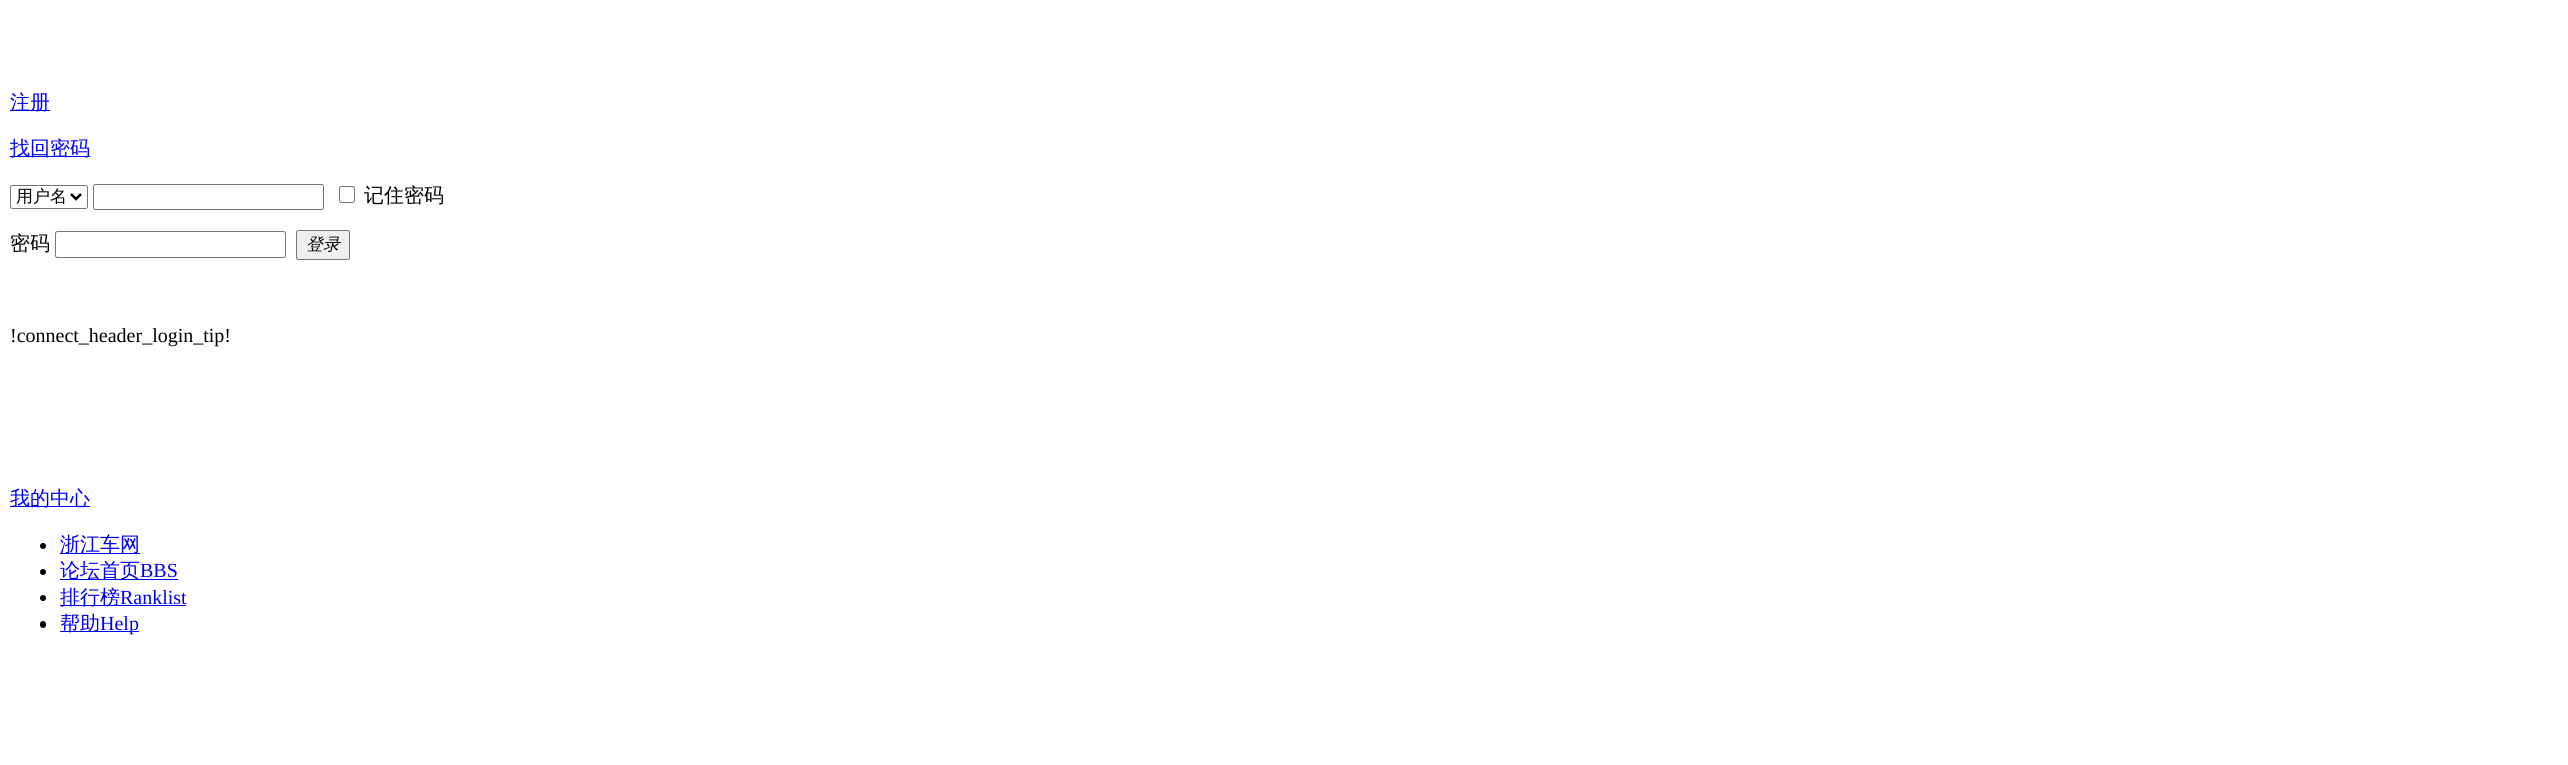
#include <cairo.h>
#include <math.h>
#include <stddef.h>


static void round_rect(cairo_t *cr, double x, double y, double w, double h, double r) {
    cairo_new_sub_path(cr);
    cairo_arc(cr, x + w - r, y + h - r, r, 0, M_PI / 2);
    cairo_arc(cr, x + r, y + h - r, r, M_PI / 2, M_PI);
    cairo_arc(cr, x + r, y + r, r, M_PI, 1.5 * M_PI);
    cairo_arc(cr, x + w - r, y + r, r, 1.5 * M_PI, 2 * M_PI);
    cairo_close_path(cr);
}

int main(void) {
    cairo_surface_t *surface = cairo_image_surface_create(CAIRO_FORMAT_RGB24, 2568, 765);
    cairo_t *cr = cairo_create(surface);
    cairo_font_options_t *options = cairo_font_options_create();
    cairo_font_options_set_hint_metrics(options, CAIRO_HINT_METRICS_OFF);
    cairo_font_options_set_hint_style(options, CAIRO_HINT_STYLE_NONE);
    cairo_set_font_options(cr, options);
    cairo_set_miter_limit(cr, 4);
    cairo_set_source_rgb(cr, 1, 1, 1);
    cairo_paint(cr);
    cairo_set_source_rgb(cr, 0, 0, 0.933);
    cairo_rectangle(cr, 10, 110, 40, 1);
    cairo_fill(cr);
    cairo_select_font_face(cr, "WenQuanYi Zen Hei Medium", CAIRO_FONT_SLANT_NORMAL, CAIRO_FONT_WEIGHT_NORMAL);
    cairo_set_font_size(cr, 20);
    cairo_move_to(cr, 10, 109);
    cairo_show_text(cr, "注册");
    cairo_rectangle(cr, 10, 156, 80, 1);
    cairo_fill(cr);
    cairo_move_to(cr, 10, 155);
    cairo_show_text(cr, "找回密码");
    round_rect(cr, 10.5, 185.5, 77, 23, 2);
    cairo_set_source_rgb(cr, 0.463, 0.463, 0.463);
    cairo_set_line_width(cr, 1);
    cairo_stroke(cr);
    cairo_new_path(cr);
    cairo_move_to(cr, 71, 194);
    cairo_line_to(cr, 76, 199);
    cairo_line_to(cr, 81, 194);
    cairo_set_source_rgb(cr, 0, 0, 0);
    cairo_set_line_width(cr, 2.5);
    cairo_stroke(cr);
    cairo_set_font_size(cr, 17);
    cairo_move_to(cr, 16, 202);
    cairo_show_text(cr, "用户名");
    round_rect(cr, 93.5, 184.5, 230, 25, 2);
    cairo_set_source_rgb(cr, 0.463, 0.463, 0.463);
    cairo_set_line_width(cr, 1);
    cairo_stroke(cr);
    round_rect(cr, 339.5, 186.5, 15, 16, 2);
    cairo_stroke(cr);
    cairo_set_font_size(cr, 20);
    cairo_set_source_rgb(cr, 0, 0, 0);
    cairo_move_to(cr, 364, 202);
    cairo_show_text(cr, "记住密码");
    cairo_move_to(cr, 10, 250);
    cairo_show_text(cr, "密码");
    round_rect(cr, 55.5, 231.5, 230, 26, 2);
    cairo_set_source_rgb(cr, 0.463, 0.463, 0.463);
    cairo_stroke(cr);
    cairo_set_source_rgb(cr, 0.937, 0.937, 0.937);
    round_rect(cr, 296.5, 230.5, 53, 29, 2);
    cairo_fill_preserve(cr);
    cairo_set_source_rgb(cr, 0.463, 0.463, 0.463);
    cairo_stroke(cr);
    cairo_select_font_face(cr, "WenQuanYi Zen Hei Medium", CAIRO_FONT_SLANT_ITALIC, CAIRO_FONT_WEIGHT_NORMAL);
    cairo_set_font_size(cr, 17);
    cairo_set_source_rgb(cr, 0, 0, 0);
    cairo_move_to(cr, 306, 250);
    cairo_show_text(cr, "登录");
    cairo_select_font_face(cr, "Liberation Serif", CAIRO_FONT_SLANT_NORMAL, CAIRO_FONT_WEIGHT_NORMAL);
    cairo_set_font_size(cr, 20);
    cairo_move_to(cr, 10, 342);
    cairo_show_text(cr, "!connect_header_login_tip!");
    cairo_set_source_rgb(cr, 0, 0, 0.933);
    cairo_rectangle(cr, 10, 506, 80, 1);
    cairo_fill(cr);
    cairo_select_font_face(cr, "WenQuanYi Zen Hei Medium", CAIRO_FONT_SLANT_NORMAL, CAIRO_FONT_WEIGHT_NORMAL);
    cairo_move_to(cr, 10, 505);
    cairo_show_text(cr, "我的中心");
    cairo_set_source_rgb(cr, 0, 0, 0);
    cairo_new_path(cr);
    cairo_arc(cr, 43, 546, 3, 0, 2 * M_PI);
    cairo_fill(cr);
    cairo_set_source_rgb(cr, 0, 0, 0.933);
    cairo_rectangle(cr, 60, 553, 80, 1);
    cairo_fill(cr);
    cairo_move_to(cr, 60, 551);
    cairo_show_text(cr, "浙江车网");
    cairo_set_source_rgb(cr, 0, 0, 0);
    cairo_new_path(cr);
    cairo_arc(cr, 43, 572, 3, 0, 2 * M_PI);
    cairo_fill(cr);
    cairo_set_source_rgb(cr, 0, 0, 0.933);
    cairo_rectangle(cr, 60, 579, 118, 1);
    cairo_fill(cr);
    cairo_move_to(cr, 60, 577);
    cairo_show_text(cr, "论坛首页");
    cairo_select_font_face(cr, "Liberation Serif", CAIRO_FONT_SLANT_NORMAL, CAIRO_FONT_WEIGHT_NORMAL);
    cairo_move_to(cr, 140, 577);
    cairo_show_text(cr, "BBS");
    cairo_set_source_rgb(cr, 0, 0, 0);
    cairo_new_path(cr);
    cairo_arc(cr, 43, 598, 3, 0, 2 * M_PI);
    cairo_fill(cr);
    cairo_set_source_rgb(cr, 0, 0, 0.933);
    cairo_rectangle(cr, 60, 605, 126, 1);
    cairo_fill(cr);
    cairo_select_font_face(cr, "WenQuanYi Zen Hei Medium", CAIRO_FONT_SLANT_NORMAL, CAIRO_FONT_WEIGHT_NORMAL);
    cairo_move_to(cr, 60, 604);
    cairo_show_text(cr, "排行榜");
    cairo_select_font_face(cr, "Liberation Serif", CAIRO_FONT_SLANT_NORMAL, CAIRO_FONT_WEIGHT_NORMAL);
    cairo_move_to(cr, 120, 604);
    cairo_show_text(cr, "Ranklist");
    cairo_set_source_rgb(cr, 0, 0, 0);
    round_rect(cr, 40, 621, 6, 7, 3);
    cairo_fill(cr);
    cairo_set_source_rgb(cr, 0, 0, 0.933);
    cairo_rectangle(cr, 60, 631, 79, 1);
    cairo_fill(cr);
    cairo_select_font_face(cr, "WenQuanYi Zen Hei Medium", CAIRO_FONT_SLANT_NORMAL, CAIRO_FONT_WEIGHT_NORMAL);
    cairo_move_to(cr, 60, 630);
    cairo_show_text(cr, "帮助");
    cairo_select_font_face(cr, "Liberation Serif", CAIRO_FONT_SLANT_NORMAL, CAIRO_FONT_WEIGHT_NORMAL);
    cairo_move_to(cr, 100, 630);
    cairo_show_text(cr, "Help");
    cairo_surface_write_to_png(surface, "page.png");
    cairo_font_options_destroy(options);
    cairo_destroy(cr);
    cairo_surface_destroy(surface);
    return 0;
}
